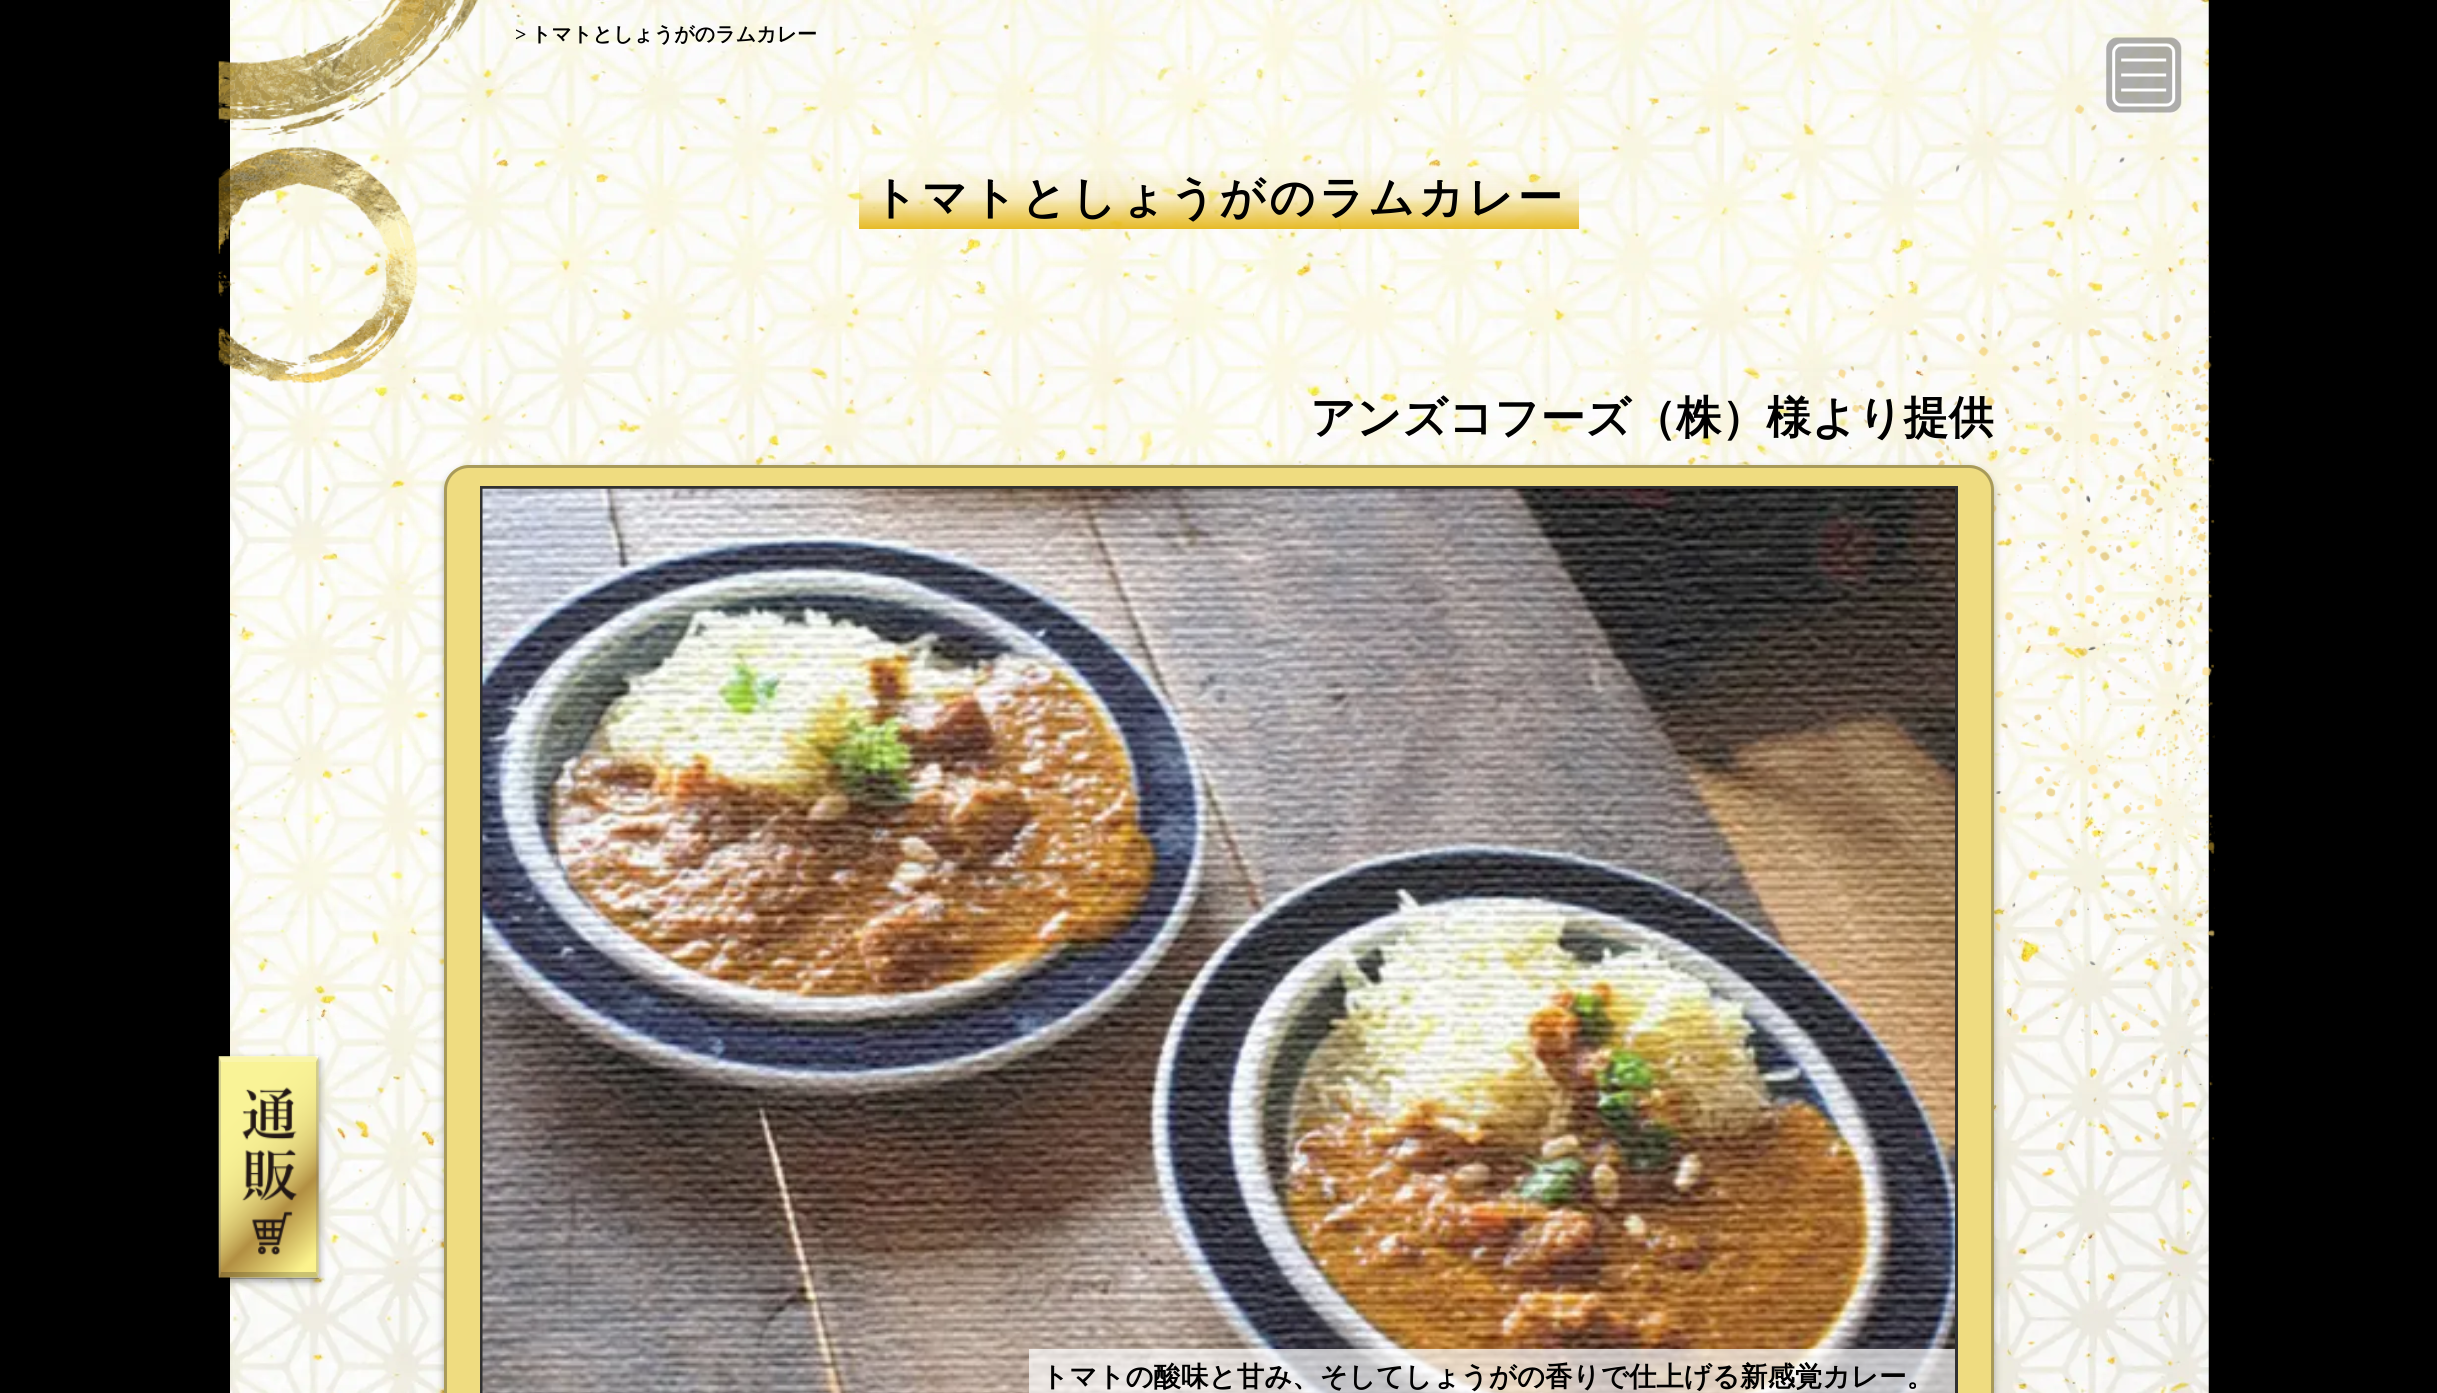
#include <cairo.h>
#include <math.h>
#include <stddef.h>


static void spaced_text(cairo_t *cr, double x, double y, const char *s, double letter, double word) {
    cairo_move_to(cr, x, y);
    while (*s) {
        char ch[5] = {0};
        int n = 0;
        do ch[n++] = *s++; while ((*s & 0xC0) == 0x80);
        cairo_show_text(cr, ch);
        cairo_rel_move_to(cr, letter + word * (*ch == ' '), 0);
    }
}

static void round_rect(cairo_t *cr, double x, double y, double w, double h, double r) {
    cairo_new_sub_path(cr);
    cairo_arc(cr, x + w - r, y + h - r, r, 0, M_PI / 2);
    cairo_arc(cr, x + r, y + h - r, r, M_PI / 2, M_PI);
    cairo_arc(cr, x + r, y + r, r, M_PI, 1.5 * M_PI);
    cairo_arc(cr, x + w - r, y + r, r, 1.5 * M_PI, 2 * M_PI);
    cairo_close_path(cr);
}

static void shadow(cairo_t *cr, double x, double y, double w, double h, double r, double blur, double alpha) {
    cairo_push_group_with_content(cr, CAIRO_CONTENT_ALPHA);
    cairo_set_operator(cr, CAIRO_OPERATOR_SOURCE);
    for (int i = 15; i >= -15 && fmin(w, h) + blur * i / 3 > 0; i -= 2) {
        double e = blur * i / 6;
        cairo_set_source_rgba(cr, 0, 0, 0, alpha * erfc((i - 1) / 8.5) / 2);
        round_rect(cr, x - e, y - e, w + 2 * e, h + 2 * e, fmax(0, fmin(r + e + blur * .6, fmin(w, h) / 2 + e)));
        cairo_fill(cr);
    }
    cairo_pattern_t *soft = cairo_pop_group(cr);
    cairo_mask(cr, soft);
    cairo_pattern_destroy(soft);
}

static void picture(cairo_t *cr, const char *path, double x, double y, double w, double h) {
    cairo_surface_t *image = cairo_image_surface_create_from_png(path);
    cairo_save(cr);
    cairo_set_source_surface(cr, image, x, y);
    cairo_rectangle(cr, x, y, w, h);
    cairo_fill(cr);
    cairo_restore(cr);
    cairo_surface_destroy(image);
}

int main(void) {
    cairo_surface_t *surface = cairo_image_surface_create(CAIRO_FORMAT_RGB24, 2437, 1393);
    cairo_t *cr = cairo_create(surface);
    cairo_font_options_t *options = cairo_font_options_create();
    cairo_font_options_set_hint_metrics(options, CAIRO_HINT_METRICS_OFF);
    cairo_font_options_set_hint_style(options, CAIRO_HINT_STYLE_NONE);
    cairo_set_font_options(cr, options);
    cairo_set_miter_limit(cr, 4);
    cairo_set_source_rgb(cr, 0, 0, 0);
    cairo_paint(cr);
    picture(cr, "img1.png", 230, 0, 1985, 1393);
    cairo_select_font_face(cr, "Liberation Serif", CAIRO_FONT_SLANT_NORMAL, CAIRO_FONT_WEIGHT_BOLD);
    cairo_set_font_size(cr, 20);
    cairo_set_source_rgb(cr, 0, 0, 0);
    cairo_move_to(cr, 515, 41);
    cairo_show_text(cr, ">");
    cairo_select_font_face(cr, "WenQuanYi Zen Hei", CAIRO_FONT_SLANT_NORMAL, CAIRO_FONT_WEIGHT_BOLD);
    cairo_move_to(cr, 531, 41);
    cairo_show_text(cr, "トマトとしょうがのラムカレー");
    picture(cr, "img2.png", 2106, 37, 76, 76);
    picture(cr, "img3.png", 218, 0, 260, 384);
    cairo_set_font_size(cr, 45);
    spaced_text(cr, 872, 213, "トマトとしょうがのラムカレー", 3.6, 0);
    cairo_move_to(cr, 1310, 433);
    cairo_show_text(cr, "アンズコフーズ（株）様より提供");
    cairo_save(cr);
    cairo_set_fill_rule(cr, CAIRO_FILL_RULE_EVEN_ODD);
    cairo_new_path(cr);
    cairo_move_to(cr, 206, 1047);
    cairo_line_to(cr, 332, 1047);
    cairo_line_to(cr, 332, 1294);
    cairo_line_to(cr, 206, 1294);
    cairo_close_path(cr);
    cairo_move_to(cr, 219, 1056);
    cairo_line_to(cr, 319, 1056);
    cairo_line_to(cr, 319, 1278);
    cairo_line_to(cr, 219, 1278);
    cairo_close_path(cr);
    cairo_clip(cr);
    cairo_set_source_rgb(cr, 0, 0, 0);
    shadow(cr, 219, 1060, 100, 221, 0, 4, 0.4);
    cairo_restore(cr);
    picture(cr, "img4.png", 218, 1056, 101, 222);
    cairo_set_source_rgba(cr, 1, 1, 1, 0.2);
    cairo_new_path(cr);
    cairo_move_to(cr, 219, 1056);
    cairo_line_to(cr, 319, 1056);
    cairo_line_to(cr, 316, 1062);
    cairo_line_to(cr, 221, 1062);
    cairo_close_path(cr);
    cairo_fill(cr);
    cairo_set_source_rgba(cr, 0.478, 0.478, 0.478, 0.3);
    cairo_new_path(cr);
    cairo_move_to(cr, 319, 1056);
    cairo_line_to(cr, 319, 1279);
    cairo_line_to(cr, 316, 1272);
    cairo_line_to(cr, 316, 1062);
    cairo_close_path(cr);
    cairo_fill(cr);
    cairo_set_source_rgba(cr, 0, 0, 0, 0.2);
    cairo_new_path(cr);
    cairo_move_to(cr, 319, 1279);
    cairo_line_to(cr, 219, 1279);
    cairo_line_to(cr, 221, 1272);
    cairo_line_to(cr, 316, 1272);
    cairo_close_path(cr);
    cairo_fill(cr);
    cairo_set_source_rgba(cr, 0.478, 0.478, 0.478, 0.3);
    cairo_new_path(cr);
    cairo_move_to(cr, 219, 1279);
    cairo_line_to(cr, 219, 1056);
    cairo_line_to(cr, 221, 1062);
    cairo_line_to(cr, 221, 1272);
    cairo_close_path(cr);
    cairo_fill(cr);
    cairo_set_source_rgb(cr, 0, 0, 0);
    shadow(cr, 444, 469, 1550, 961, 25, 4, 0.3);
    cairo_set_source_rgb(cr, 0.937, 0.871, 0.525);
    round_rect(cr, 444, 465, 1550, 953, 25);
    cairo_fill(cr);
    cairo_set_source_rgba(cr, 0.929, 0.847, 0.459, 0.19);
    round_rect(cr, 444, 465, 1550, 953, 25);
    cairo_fill(cr);
    round_rect(cr, 444, 465, 1550, 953, 25);
    cairo_fill(cr);
    round_rect(cr, 445.5, 466.5, 1547, 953, 23.5);
    cairo_set_source_rgba(cr, 0, 0, 0, 0.3);
    cairo_set_line_width(cr, 3);
    cairo_stroke(cr);
    cairo_rectangle(cr, 481.5, 487.5, 1475, 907);
    cairo_set_source_rgb(cr, 0.192, 0.192, 0.192);
    cairo_stroke(cr);
    picture(cr, "img5.png", 482, 488, 1473, 905);
    cairo_set_source_rgba(cr, 1, 1, 1, 0.7);
    cairo_rectangle(cr, 1029, 1349, 926, 44);
    cairo_fill(cr);
    cairo_set_font_size(cr, 27.5);
    cairo_set_source_rgb(cr, 0, 0, 0);
    cairo_move_to(cr, 1041, 1386);
    cairo_show_text(cr, "トマトの酸味と甘み、そしてしょうがの香りで仕上げる新感覚カレー。");
    cairo_surface_write_to_png(surface, "page.png");
    cairo_font_options_destroy(options);
    cairo_destroy(cr);
    cairo_surface_destroy(surface);
    return 0;
}
